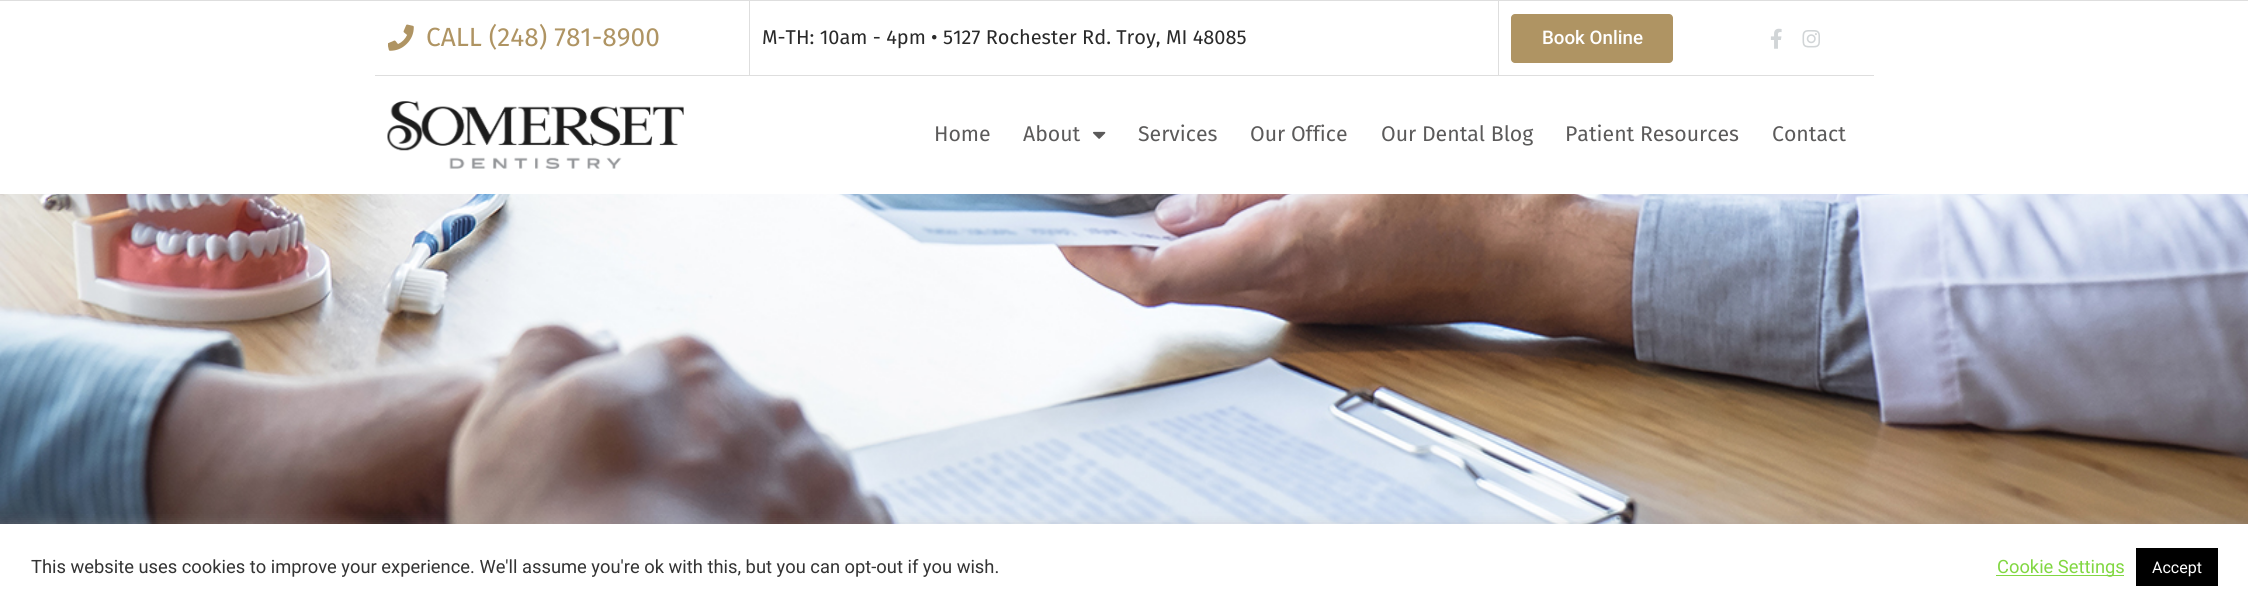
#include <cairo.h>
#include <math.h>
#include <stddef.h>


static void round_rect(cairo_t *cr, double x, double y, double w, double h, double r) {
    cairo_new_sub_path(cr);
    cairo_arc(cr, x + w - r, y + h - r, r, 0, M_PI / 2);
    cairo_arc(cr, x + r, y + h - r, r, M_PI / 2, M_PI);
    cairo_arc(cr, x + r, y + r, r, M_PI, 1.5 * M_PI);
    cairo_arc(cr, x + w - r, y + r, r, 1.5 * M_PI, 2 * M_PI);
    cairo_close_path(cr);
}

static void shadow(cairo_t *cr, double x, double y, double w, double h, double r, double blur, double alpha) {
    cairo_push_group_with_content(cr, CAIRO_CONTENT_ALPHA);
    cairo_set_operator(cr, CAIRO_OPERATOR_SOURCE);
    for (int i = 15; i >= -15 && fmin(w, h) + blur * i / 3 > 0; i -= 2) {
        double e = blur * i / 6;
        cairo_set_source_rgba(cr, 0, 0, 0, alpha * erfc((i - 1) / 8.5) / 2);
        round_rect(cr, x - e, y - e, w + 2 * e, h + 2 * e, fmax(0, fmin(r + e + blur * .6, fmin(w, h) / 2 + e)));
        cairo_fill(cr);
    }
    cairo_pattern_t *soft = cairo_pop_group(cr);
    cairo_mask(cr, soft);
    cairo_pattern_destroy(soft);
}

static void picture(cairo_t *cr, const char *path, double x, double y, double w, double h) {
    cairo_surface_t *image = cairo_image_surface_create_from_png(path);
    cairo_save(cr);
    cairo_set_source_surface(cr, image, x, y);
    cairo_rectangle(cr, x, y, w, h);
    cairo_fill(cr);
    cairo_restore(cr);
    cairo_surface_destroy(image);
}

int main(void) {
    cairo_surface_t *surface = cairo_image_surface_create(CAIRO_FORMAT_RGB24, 2248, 609);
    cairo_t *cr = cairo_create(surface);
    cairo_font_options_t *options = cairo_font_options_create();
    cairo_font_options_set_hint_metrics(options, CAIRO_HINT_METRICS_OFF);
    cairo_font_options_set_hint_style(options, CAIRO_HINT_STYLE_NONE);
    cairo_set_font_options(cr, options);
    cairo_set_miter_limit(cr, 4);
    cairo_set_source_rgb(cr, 1, 1, 1);
    cairo_paint(cr);
    cairo_set_source_rgb(cr, 0.871, 0.871, 0.871);
    cairo_rectangle(cr, 0, 0, 2248, 1);
    cairo_fill(cr);
    cairo_rectangle(cr, 749, 1, 1, 75);
    cairo_fill(cr);
    cairo_rectangle(cr, 375, 75, 375, 1);
    cairo_fill(cr);
    picture(cr, "img1.png", 388, 24, 26, 27);
    cairo_select_font_face(cr, "Fira Sans", CAIRO_FONT_SLANT_NORMAL, CAIRO_FONT_WEIGHT_NORMAL);
    cairo_set_font_size(cr, 26.25);
    cairo_set_source_rgb(cr, 0.686, 0.58, 0.388);
    cairo_move_to(cr, 426, 46);
    cairo_show_text(cr, "CALL (248) 781-8900");
    cairo_set_source_rgb(cr, 0.871, 0.871, 0.871);
    cairo_rectangle(cr, 1498, 1, 1, 75);
    cairo_fill(cr);
    cairo_rectangle(cr, 750, 75, 1124, 1);
    cairo_fill(cr);
    cairo_set_font_size(cr, 20);
    cairo_set_source_rgb(cr, 0.161, 0.161, 0.161);
    cairo_move_to(cr, 762, 44);
    cairo_show_text(cr, "M-TH: 10am - 4pm • 5127 Rochester Rd. Troy, MI 48085");
    cairo_set_source_rgb(cr, 0.686, 0.58, 0.388);
    round_rect(cr, 1511, 14, 162, 49, 4);
    cairo_fill(cr);
    cairo_select_font_face(cr, "Roboto Medium", CAIRO_FONT_SLANT_NORMAL, CAIRO_FONT_WEIGHT_NORMAL);
    cairo_set_font_size(cr, 18.75);
    cairo_set_source_rgb(cr, 1, 1, 1);
    cairo_move_to(cr, 1542, 44);
    cairo_show_text(cr, "Book Online");
    picture(cr, "img2.png", 1770, 28, 12, 21);
    picture(cr, "img3.png", 1802, 30, 18, 18);
    picture(cr, "img4.png", 387, 101, 297, 68);
    cairo_select_font_face(cr, "Fira Sans", CAIRO_FONT_SLANT_NORMAL, CAIRO_FONT_WEIGHT_NORMAL);
    cairo_set_font_size(cr, 21.25);
    cairo_set_source_rgb(cr, 0.357, 0.353, 0.353);
    cairo_move_to(cr, 934, 141);
    cairo_show_text(cr, "Home");
    cairo_move_to(cr, 1023, 141);
    cairo_show_text(cr, "About");
    picture(cr, "img5.png", 1093, 131, 13, 8);
    cairo_move_to(cr, 1138, 141);
    cairo_show_text(cr, "Services");
    cairo_move_to(cr, 1250, 141);
    cairo_show_text(cr, "Our Office");
    cairo_move_to(cr, 1381, 141);
    cairo_show_text(cr, "Our Dental Blog");
    cairo_move_to(cr, 1565, 141);
    cairo_show_text(cr, "Patient Resources");
    cairo_move_to(cr, 1772, 141);
    cairo_show_text(cr, "Contact");
    picture(cr, "img6.png", 0, 194, 2248, 330);
    cairo_set_source_rgb(cr, 0.675, 0.671, 0.671);
    shadow(cr, 0, 523, 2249, 86, 0, 6, 0.3);
    cairo_set_source_rgb(cr, 1, 1, 1);
    cairo_rectangle(cr, 0, 524, 2248, 85);
    cairo_fill(cr);
    cairo_select_font_face(cr, "Roboto", CAIRO_FONT_SLANT_NORMAL, CAIRO_FONT_WEIGHT_NORMAL);
    cairo_set_font_size(cr, 18.33);
    cairo_set_source_rgb(cr, 0.2, 0.2, 0.2);
    cairo_move_to(cr, 31, 573);
    cairo_show_text(cr, "This website uses cookies to improve your experience. We'll assume you're ok with this, but you can opt-out if you wish.");
    cairo_set_source_rgb(cr, 0.506, 0.843, 0.259);
    cairo_rectangle(cr, 1996, 575, 128, 1);
    cairo_fill(cr);
    cairo_move_to(cr, 1997, 573);
    cairo_show_text(cr, "Cookie Settings");
    cairo_set_source_rgb(cr, 0, 0, 0);
    cairo_rectangle(cr, 2136, 548, 82, 38);
    cairo_fill(cr);
    cairo_set_font_size(cr, 16);
    cairo_set_source_rgb(cr, 1, 1, 1);
    cairo_move_to(cr, 2152, 573);
    cairo_show_text(cr, "Accept");
    cairo_surface_write_to_png(surface, "page.png");
    cairo_font_options_destroy(options);
    cairo_destroy(cr);
    cairo_surface_destroy(surface);
    return 0;
}
